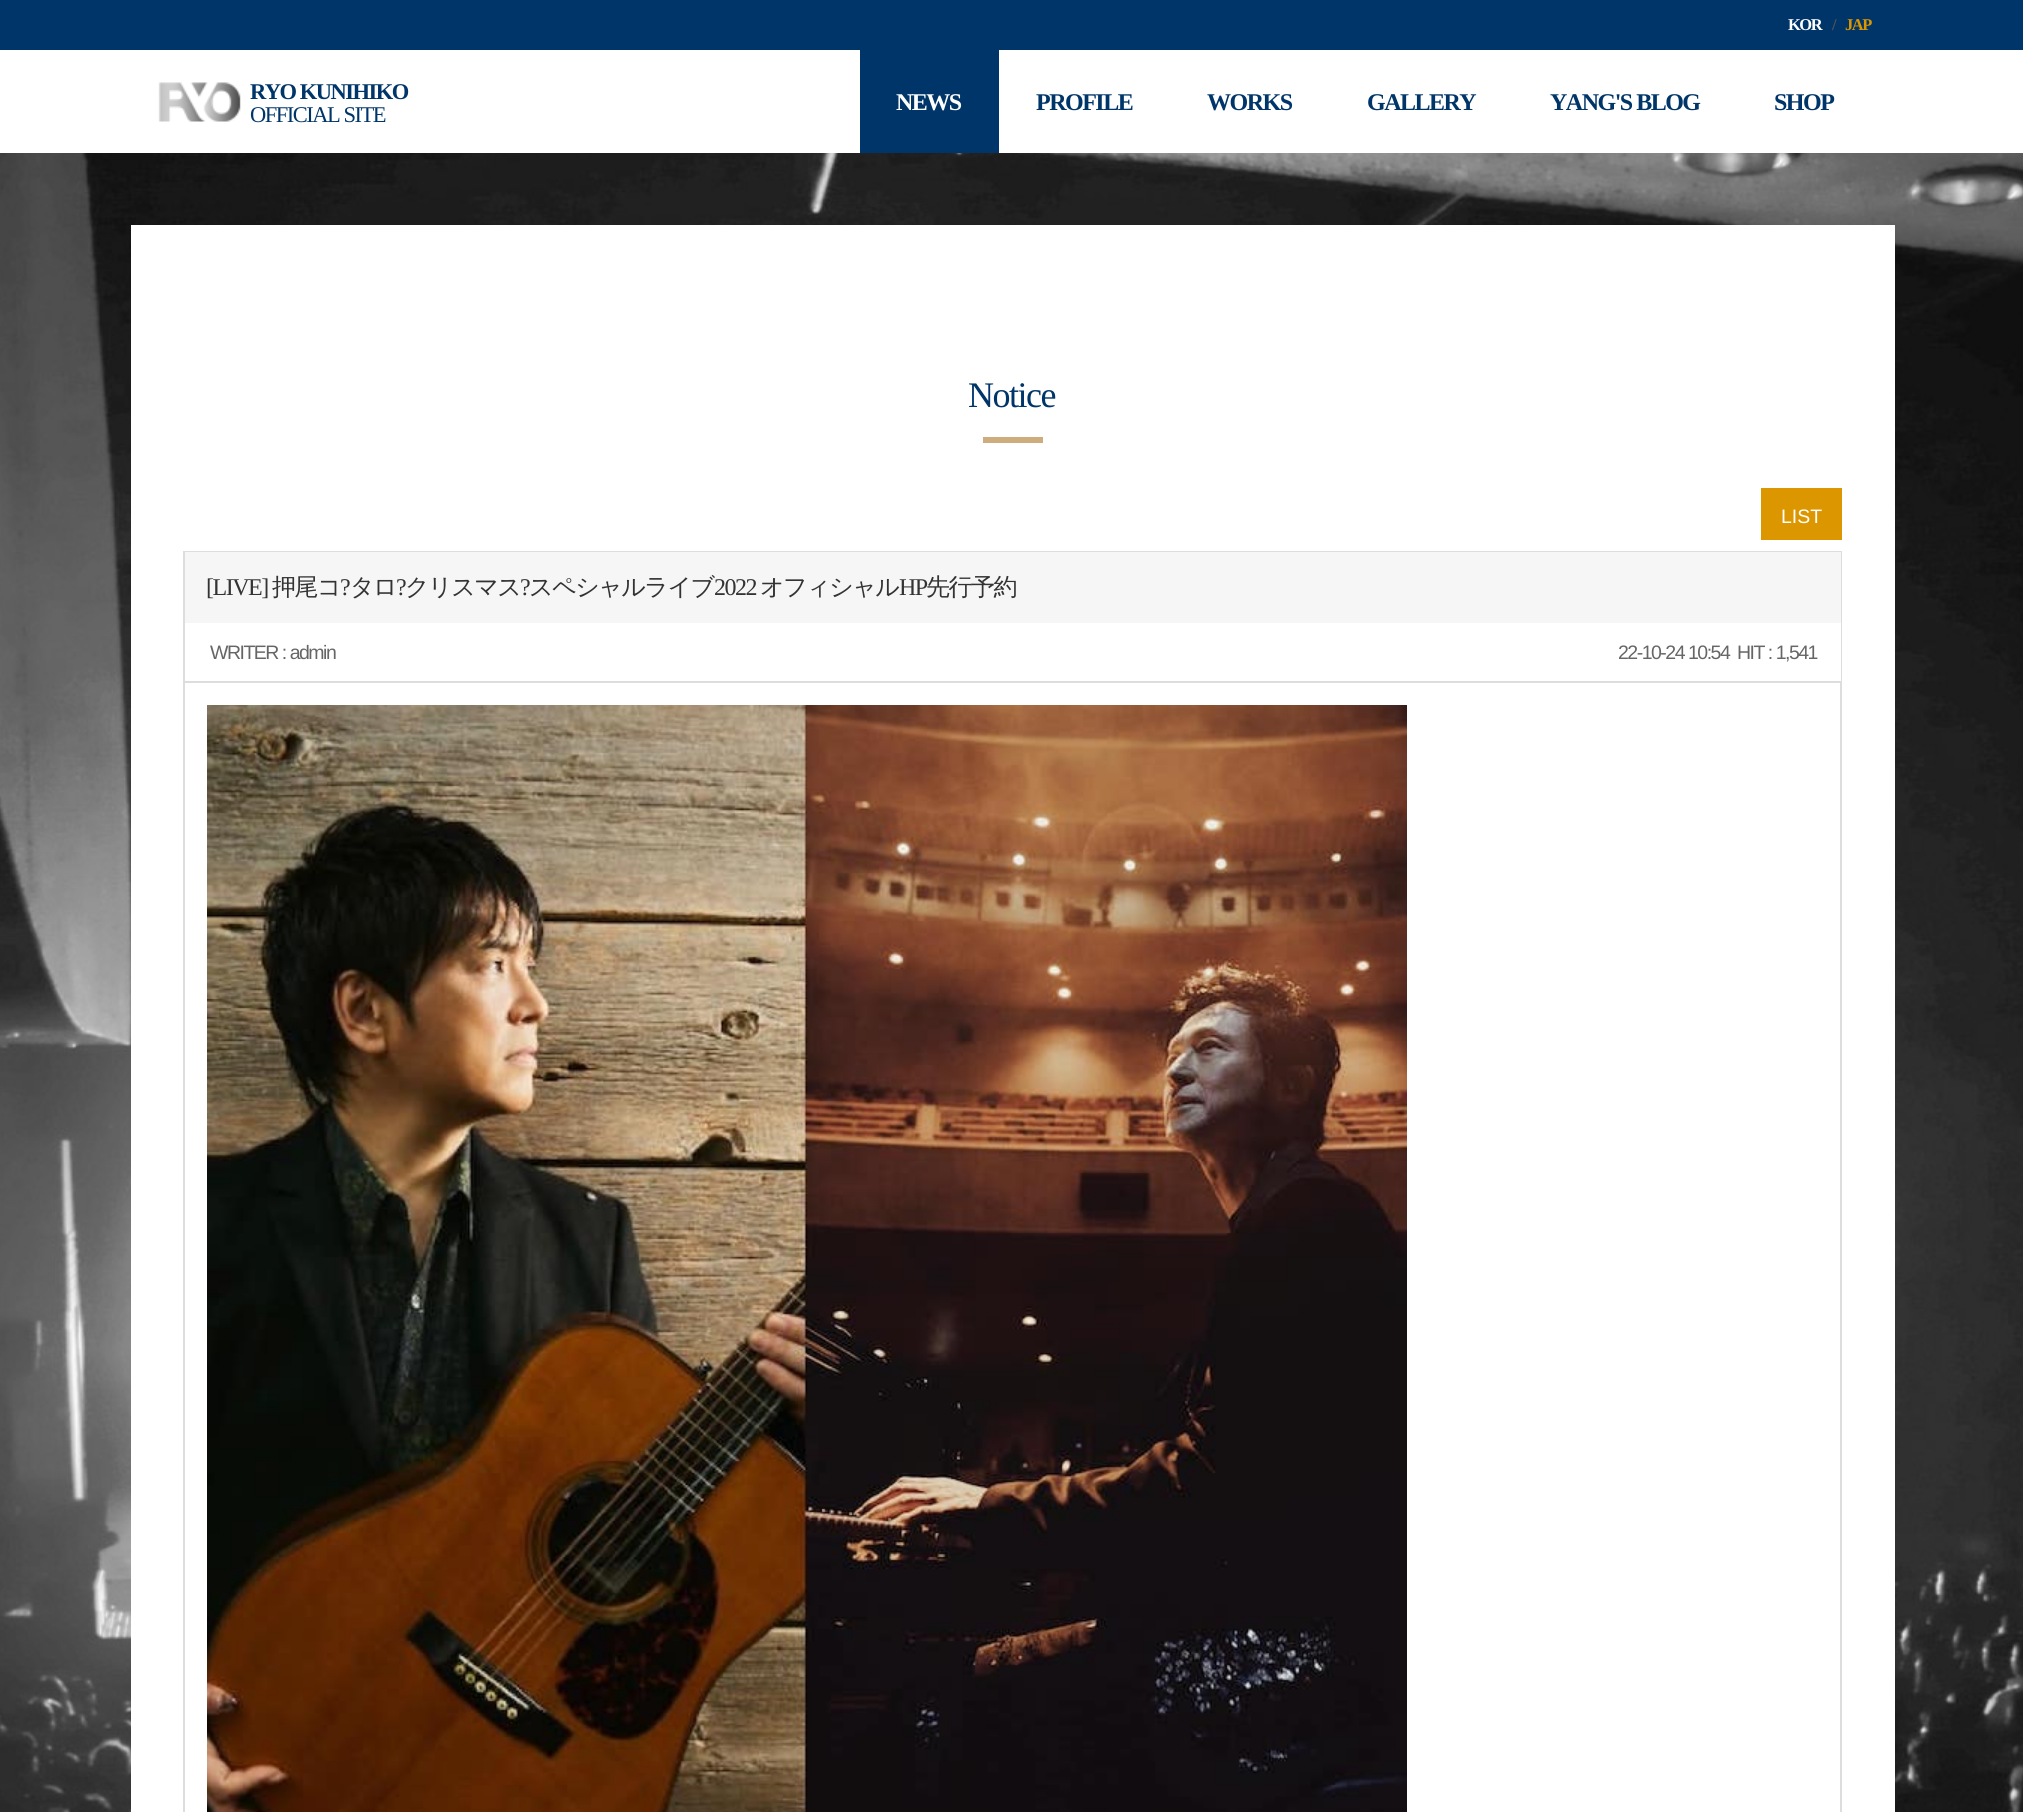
#include <cairo.h>
#include <math.h>
#include <stddef.h>


static void spaced_text(cairo_t *cr, double x, double y, const char *s, double letter, double word) {
    cairo_move_to(cr, x, y);
    while (*s) {
        char ch[5] = {0};
        int n = 0;
        do ch[n++] = *s++; while ((*s & 0xC0) == 0x80);
        cairo_show_text(cr, ch);
        cairo_rel_move_to(cr, letter + word * (*ch == ' '), 0);
    }
}

static void picture(cairo_t *cr, const char *path, double x, double y, double w, double h) {
    cairo_surface_t *image = cairo_image_surface_create_from_png(path);
    cairo_save(cr);
    cairo_set_source_surface(cr, image, x, y);
    cairo_rectangle(cr, x, y, w, h);
    cairo_fill(cr);
    cairo_restore(cr);
    cairo_surface_destroy(image);
}

int main(void) {
    cairo_surface_t *surface = cairo_image_surface_create(CAIRO_FORMAT_RGB24, 2023, 1812);
    cairo_t *cr = cairo_create(surface);
    cairo_font_options_t *options = cairo_font_options_create();
    cairo_font_options_set_hint_metrics(options, CAIRO_HINT_METRICS_OFF);
    cairo_font_options_set_hint_style(options, CAIRO_HINT_STYLE_NONE);
    cairo_set_font_options(cr, options);
    cairo_set_miter_limit(cr, 4);
    cairo_set_source_rgb(cr, 1, 1, 1);
    cairo_paint(cr);
    picture(cr, "img1.png", 0, 153, 2023, 1659);
    cairo_set_source_rgb(cr, 0, 0.208, 0.412);
    cairo_rectangle(cr, 0, 0, 2023, 50);
    cairo_fill(cr);
    cairo_select_font_face(cr, "Liberation Serif", CAIRO_FONT_SLANT_NORMAL, CAIRO_FONT_WEIGHT_BOLD);
    cairo_set_font_size(cr, 16.5);
    cairo_set_source_rgb(cr, 1, 1, 1);
    spaced_text(cr, 1788, 30, "KOR", -1.5, 0);
    cairo_set_source_rgb(cr, 0.322, 0.329, 0.337);
    spaced_text(cr, 1832, 30, "/", -1.5, 0);
    cairo_set_source_rgb(cr, 0.859, 0.588, 0);
    spaced_text(cr, 1845, 30, "JAP", -1.5, 0);
    picture(cr, "img2.png", 158, 82, 83, 40);
    cairo_set_font_size(cr, 22.5);
    cairo_set_source_rgb(cr, 0, 0.208, 0.412);
    spaced_text(cr, 250, 99, "RYO KUNIHIKO", -1.5, 0);
    cairo_select_font_face(cr, "Liberation Serif", CAIRO_FONT_SLANT_NORMAL, CAIRO_FONT_WEIGHT_NORMAL);
    spaced_text(cr, 250, 122, "OFFICIAL SITE", -1.5, 0);
    cairo_rectangle(cr, 860, 50, 139, 103);
    cairo_fill(cr);
    cairo_select_font_face(cr, "Liberation Serif", CAIRO_FONT_SLANT_NORMAL, CAIRO_FONT_WEIGHT_BOLD);
    cairo_set_font_size(cr, 24);
    cairo_set_source_rgb(cr, 1, 1, 1);
    spaced_text(cr, 896, 110, "NEWS", -1.5, 0);
    cairo_set_source_rgb(cr, 0, 0.208, 0.412);
    spaced_text(cr, 1036, 110, "PROFILE", -1.5, 0);
    spaced_text(cr, 1207, 110, "WORKS", -1.5, 0);
    spaced_text(cr, 1367, 110, "GALLERY", -1.5, 0);
    spaced_text(cr, 1550, 110, "YANG'S BLOG", -1.5, 0);
    spaced_text(cr, 1774, 110, "SHOP", -1.5, 0);
    cairo_set_source_rgb(cr, 1, 1, 1);
    cairo_rectangle(cr, 131, 225, 1764, 1587);
    cairo_fill(cr);
    cairo_select_font_face(cr, "Liberation Serif", CAIRO_FONT_SLANT_NORMAL, CAIRO_FONT_WEIGHT_NORMAL);
    cairo_set_font_size(cr, 36);
    cairo_set_source_rgb(cr, 0, 0.208, 0.412);
    spaced_text(cr, 968, 407, "Notice", -1.5, 0);
    cairo_set_source_rgb(cr, 0.804, 0.678, 0.494);
    cairo_rectangle(cr, 983, 437, 60, 6);
    cairo_fill(cr);
    cairo_set_source_rgb(cr, 0.859, 0.588, 0);
    cairo_rectangle(cr, 1761, 488, 81, 52);
    cairo_fill(cr);
    cairo_select_font_face(cr, "Liberation Sans", CAIRO_FONT_SLANT_NORMAL, CAIRO_FONT_WEIGHT_NORMAL);
    cairo_set_font_size(cr, 19.5);
    cairo_set_source_rgb(cr, 1, 1, 1);
    cairo_move_to(cr, 1781, 523);
    cairo_show_text(cr, "LIST");
    cairo_rectangle(cr, 184, 552, 1657, 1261);
    cairo_set_source_rgb(cr, 0.867, 0.867, 0.867);
    cairo_stroke(cr);
    cairo_set_source_rgb(cr, 0.961, 0.961, 0.961);
    cairo_rectangle(cr, 185, 552, 1656, 71);
    cairo_fill(cr);
    cairo_select_font_face(cr, "Liberation Serif", CAIRO_FONT_SLANT_NORMAL, CAIRO_FONT_WEIGHT_NORMAL);
    cairo_set_font_size(cr, 24);
    cairo_set_source_rgb(cr, 0.2, 0.2, 0.2);
    spaced_text(cr, 206, 595, "[LIVE]", -1.5, 0);
    cairo_select_font_face(cr, "WenQuanYi Zen Hei Medium", CAIRO_FONT_SLANT_NORMAL, CAIRO_FONT_WEIGHT_NORMAL);
    spaced_text(cr, 272, 595, "押尾コ", -1.5, 0);
    cairo_select_font_face(cr, "Liberation Serif", CAIRO_FONT_SLANT_NORMAL, CAIRO_FONT_WEIGHT_NORMAL);
    spaced_text(cr, 340, 595, "?", -1.5, 0);
    cairo_select_font_face(cr, "WenQuanYi Zen Hei Medium", CAIRO_FONT_SLANT_NORMAL, CAIRO_FONT_WEIGHT_NORMAL);
    spaced_text(cr, 350, 595, "タロ", -1.5, 0);
    cairo_select_font_face(cr, "Liberation Serif", CAIRO_FONT_SLANT_NORMAL, CAIRO_FONT_WEIGHT_NORMAL);
    spaced_text(cr, 396, 595, "?", -1.5, 0);
    cairo_select_font_face(cr, "WenQuanYi Zen Hei Medium", CAIRO_FONT_SLANT_NORMAL, CAIRO_FONT_WEIGHT_NORMAL);
    spaced_text(cr, 405, 595, "クリスマス", -1.5, 0);
    cairo_select_font_face(cr, "Liberation Serif", CAIRO_FONT_SLANT_NORMAL, CAIRO_FONT_WEIGHT_NORMAL);
    spaced_text(cr, 520, 595, "?", -1.5, 0);
    cairo_select_font_face(cr, "WenQuanYi Zen Hei Medium", CAIRO_FONT_SLANT_NORMAL, CAIRO_FONT_WEIGHT_NORMAL);
    spaced_text(cr, 529, 595, "スペシャルライブ", -1.5, 0);
    cairo_select_font_face(cr, "Liberation Serif", CAIRO_FONT_SLANT_NORMAL, CAIRO_FONT_WEIGHT_NORMAL);
    spaced_text(cr, 714, 595, "2022", -1.5, 0);
    cairo_select_font_face(cr, "WenQuanYi Zen Hei Medium", CAIRO_FONT_SLANT_NORMAL, CAIRO_FONT_WEIGHT_NORMAL);
    spaced_text(cr, 760, 595, "オフィシャル", -1.5, 0);
    cairo_select_font_face(cr, "Liberation Serif", CAIRO_FONT_SLANT_NORMAL, CAIRO_FONT_WEIGHT_NORMAL);
    spaced_text(cr, 899, 595, "HP", -1.5, 0);
    cairo_select_font_face(cr, "WenQuanYi Zen Hei Medium", CAIRO_FONT_SLANT_NORMAL, CAIRO_FONT_WEIGHT_NORMAL);
    spaced_text(cr, 926, 595, "先行予約", -1.5, 0);
    cairo_set_source_rgb(cr, 1, 1, 1);
    cairo_rectangle(cr, 1840, 623, 1, 58);
    cairo_fill(cr);
    cairo_set_source_rgb(cr, 0.867, 0.867, 0.867);
    cairo_rectangle(cr, 185, 681, 1656, 2);
    cairo_fill(cr);
    cairo_select_font_face(cr, "Liberation Sans", CAIRO_FONT_SLANT_NORMAL, CAIRO_FONT_WEIGHT_NORMAL);
    cairo_set_font_size(cr, 19.5);
    cairo_set_source_rgb(cr, 0.4, 0.4, 0.4);
    spaced_text(cr, 210, 659, "WRITER : admin", -1.5, 0);
    spaced_text(cr, 1618, 659, "22-10-24 10:54", -1.5, 0);
    spaced_text(cr, 1737, 659, "HIT : 1,541", -1.5, 0);
    picture(cr, "img3.png", 207, 705, 1200, 1107);
    cairo_surface_write_to_png(surface, "page.png");
    cairo_font_options_destroy(options);
    cairo_destroy(cr);
    cairo_surface_destroy(surface);
    return 0;
}
